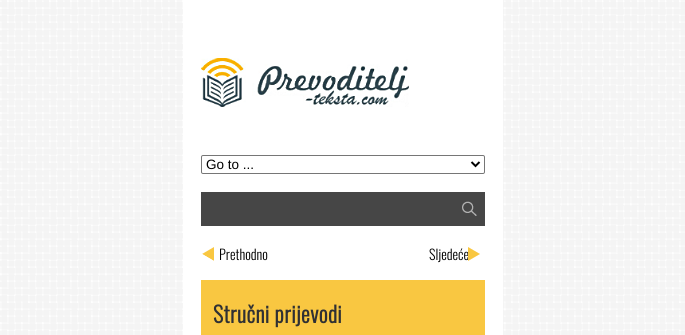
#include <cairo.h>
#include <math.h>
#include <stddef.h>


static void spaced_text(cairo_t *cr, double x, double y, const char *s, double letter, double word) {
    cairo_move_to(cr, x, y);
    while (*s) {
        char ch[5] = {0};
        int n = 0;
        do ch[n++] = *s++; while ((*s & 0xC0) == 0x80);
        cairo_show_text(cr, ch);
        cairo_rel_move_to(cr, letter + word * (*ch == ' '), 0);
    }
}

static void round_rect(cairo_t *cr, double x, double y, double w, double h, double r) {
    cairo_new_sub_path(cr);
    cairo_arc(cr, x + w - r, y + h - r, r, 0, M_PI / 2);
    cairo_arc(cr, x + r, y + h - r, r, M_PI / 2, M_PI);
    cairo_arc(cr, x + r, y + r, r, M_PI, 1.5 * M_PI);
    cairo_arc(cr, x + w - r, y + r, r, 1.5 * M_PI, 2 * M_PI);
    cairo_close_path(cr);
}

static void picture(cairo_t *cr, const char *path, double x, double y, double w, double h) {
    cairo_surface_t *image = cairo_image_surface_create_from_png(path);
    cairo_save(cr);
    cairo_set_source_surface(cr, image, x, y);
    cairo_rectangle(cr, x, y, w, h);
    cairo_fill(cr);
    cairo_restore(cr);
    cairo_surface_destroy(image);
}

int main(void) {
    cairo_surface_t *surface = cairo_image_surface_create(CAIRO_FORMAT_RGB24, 685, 335);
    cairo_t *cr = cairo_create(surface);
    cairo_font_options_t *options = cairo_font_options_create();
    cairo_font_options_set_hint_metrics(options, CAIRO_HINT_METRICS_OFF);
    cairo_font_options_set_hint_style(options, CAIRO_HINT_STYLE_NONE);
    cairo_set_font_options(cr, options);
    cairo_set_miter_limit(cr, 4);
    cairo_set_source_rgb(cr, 1, 1, 1);
    cairo_paint(cr);
    picture(cr, "img1.png", 0, 0, 685, 335);
    cairo_set_source_rgb(cr, 1, 1, 1);
    cairo_rectangle(cr, 183, 0, 320, 335);
    cairo_fill(cr);
    picture(cr, "img2.png", 201, 58, 208, 49);
    round_rect(cr, 201.5, 155.5, 283, 18, 1.5);
    cairo_set_source_rgb(cr, 0.463, 0.463, 0.463);
    cairo_set_line_width(cr, 1);
    cairo_stroke(cr);
    cairo_new_path(cr);
    cairo_move_to(cr, 471.5, 162);
    cairo_line_to(cr, 475.5, 166);
    cairo_line_to(cr, 479.5, 162);
    cairo_set_source_rgb(cr, 0, 0, 0);
    cairo_set_line_width(cr, 2);
    cairo_stroke(cr);
    cairo_select_font_face(cr, "Liberation Sans", CAIRO_FONT_SLANT_NORMAL, CAIRO_FONT_WEIGHT_NORMAL);
    cairo_set_font_size(cr, 13.5);
    cairo_move_to(cr, 206, 169);
    cairo_show_text(cr, "Go to ...");
    cairo_set_source_rgb(cr, 0.275, 0.275, 0.275);
    cairo_rectangle(cr, 201, 192, 284, 34);
    cairo_fill(cr);
    picture(cr, "img3.png", 462, 201, 15, 15);
    cairo_set_source_rgb(cr, 0.973, 0.78, 0.255);
    cairo_new_path(cr);
    cairo_move_to(cr, 214, 247);
    cairo_line_to(cr, 214, 261);
    cairo_line_to(cr, 202, 254);
    cairo_close_path(cr);
    cairo_fill(cr);
    cairo_save(cr);
    cairo_rectangle(cr, 201, 244, 284, 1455);
    cairo_clip(cr);
    cairo_set_source_rgb(cr, 1, 1, 1);
    cairo_new_path(cr);
    cairo_move_to(cr, 214, 261);
    cairo_line_to(cr, 180, 261);
    cairo_line_to(cr, 187, 254);
    cairo_line_to(cr, 202, 254);
    cairo_close_path(cr);
    cairo_fill(cr);
    cairo_restore(cr);
    cairo_select_font_face(cr, "Oswald Light", CAIRO_FONT_SLANT_NORMAL, CAIRO_FONT_WEIGHT_NORMAL);
    cairo_set_font_size(cr, 14);
    cairo_set_source_rgb(cr, 0, 0, 0);
    cairo_move_to(cr, 219, 260);
    cairo_show_text(cr, "Prethodno");
    cairo_move_to(cr, 429, 260);
    cairo_show_text(cr, "Sljedeće");
    cairo_set_source_rgb(cr, 0.973, 0.78, 0.255);
    cairo_new_path(cr);
    cairo_move_to(cr, 468, 261);
    cairo_line_to(cr, 468, 247);
    cairo_line_to(cr, 480, 254);
    cairo_close_path(cr);
    cairo_fill(cr);
    cairo_rectangle(cr, 201, 280, 284, 55);
    cairo_fill(cr);
    cairo_select_font_face(cr, "Oswald", CAIRO_FONT_SLANT_NORMAL, CAIRO_FONT_WEIGHT_BOLD);
    cairo_set_font_size(cr, 22);
    cairo_set_source_rgb(cr, 0.184, 0.188, 0.2);
    spaced_text(cr, 213, 323, "Stručni prijevodi", 0.4, 0);
    cairo_surface_write_to_png(surface, "page.png");
    cairo_font_options_destroy(options);
    cairo_destroy(cr);
    cairo_surface_destroy(surface);
    return 0;
}
